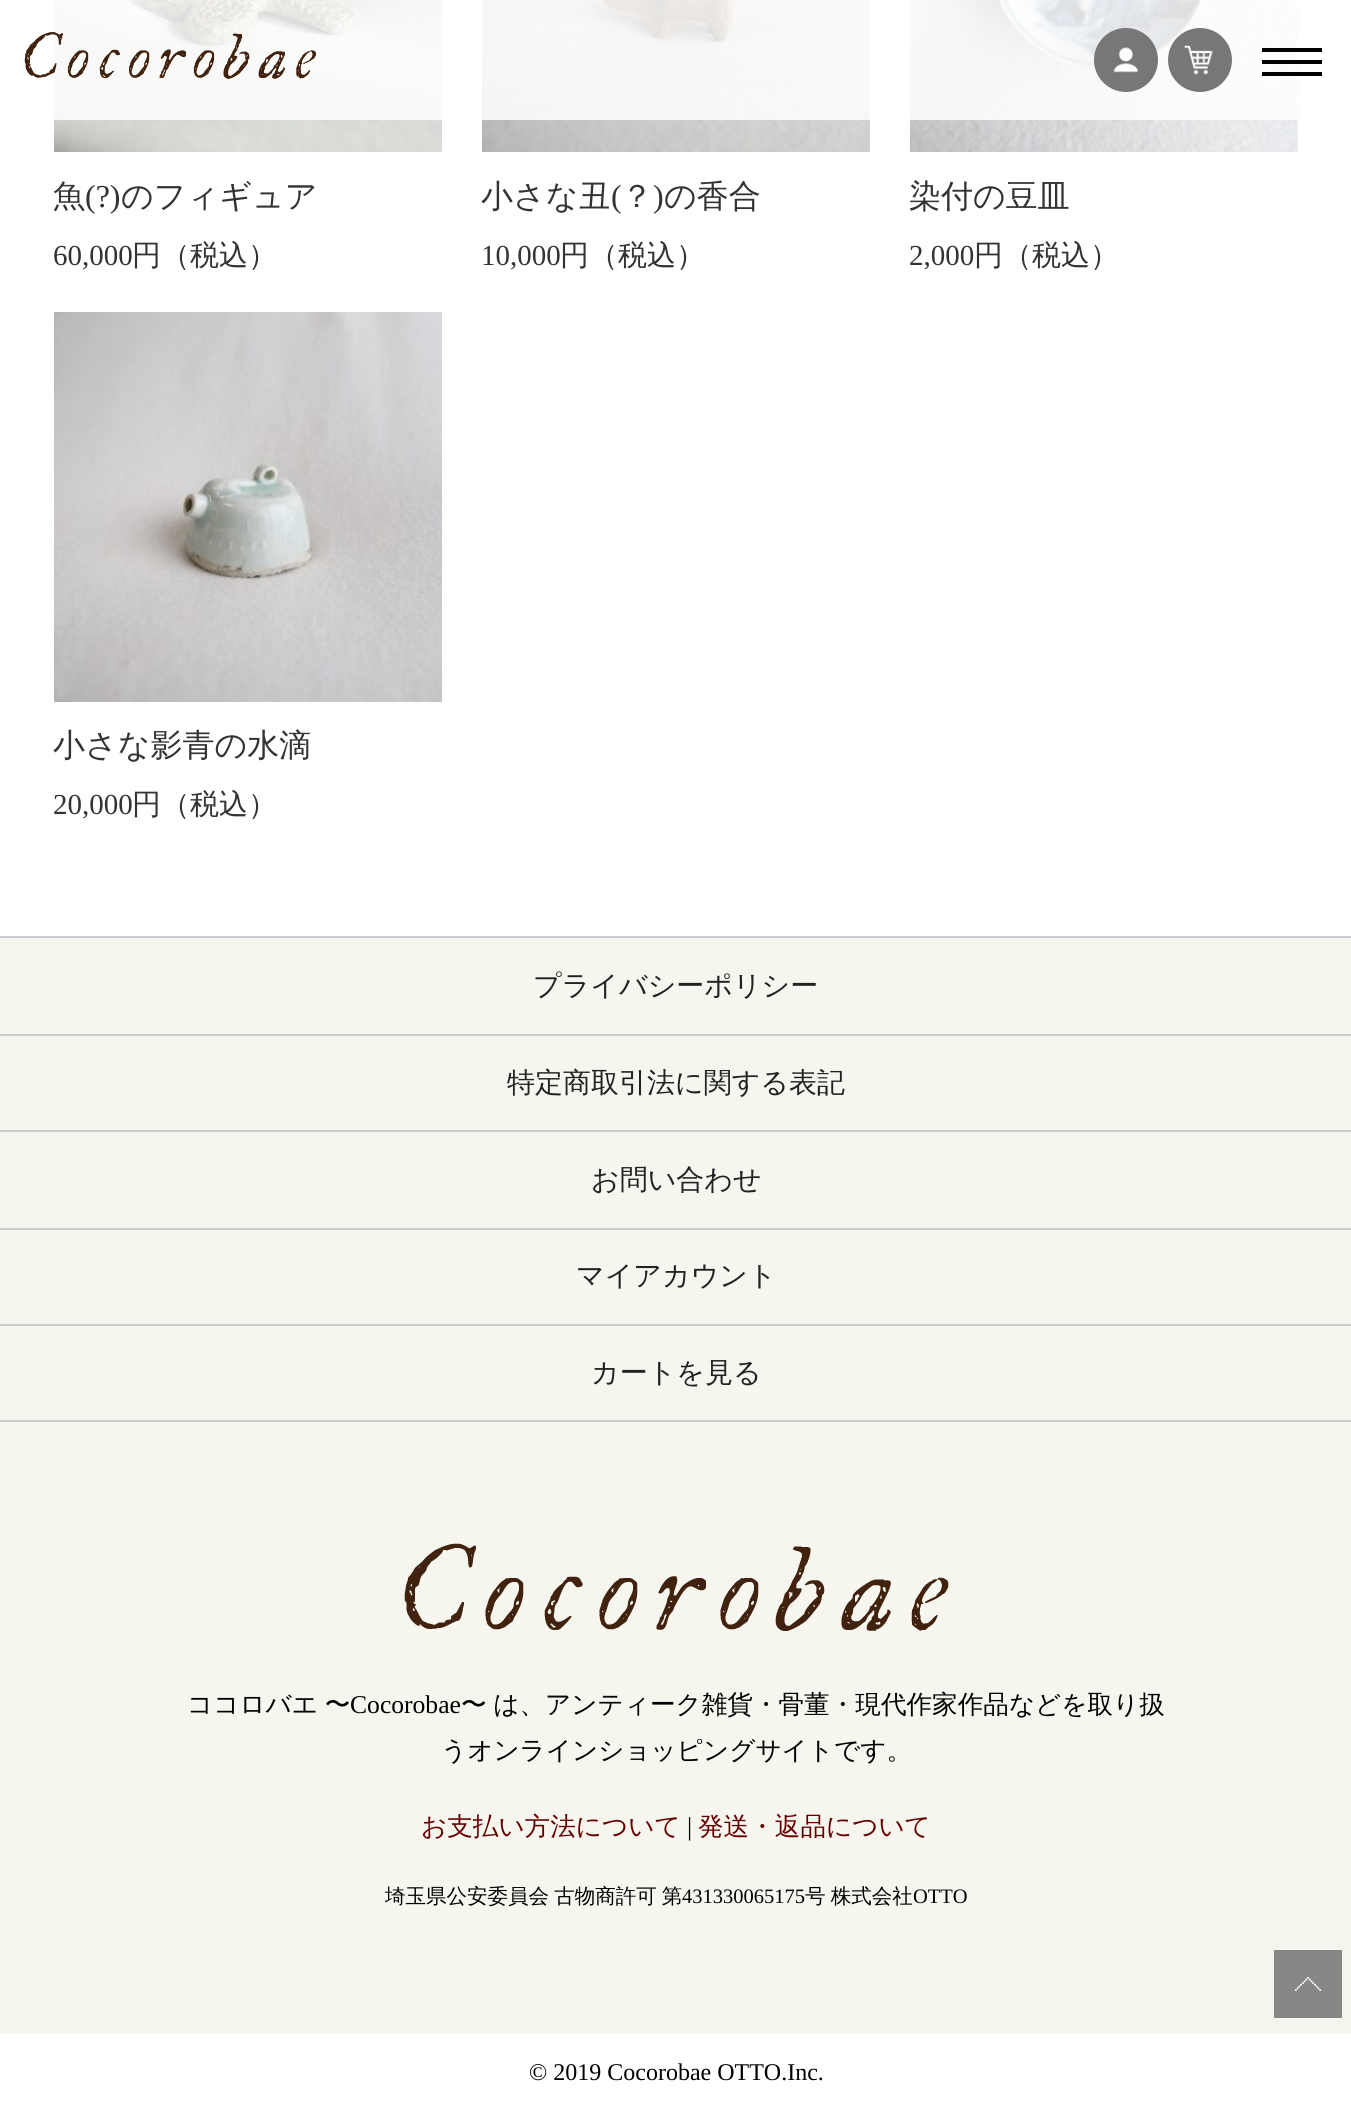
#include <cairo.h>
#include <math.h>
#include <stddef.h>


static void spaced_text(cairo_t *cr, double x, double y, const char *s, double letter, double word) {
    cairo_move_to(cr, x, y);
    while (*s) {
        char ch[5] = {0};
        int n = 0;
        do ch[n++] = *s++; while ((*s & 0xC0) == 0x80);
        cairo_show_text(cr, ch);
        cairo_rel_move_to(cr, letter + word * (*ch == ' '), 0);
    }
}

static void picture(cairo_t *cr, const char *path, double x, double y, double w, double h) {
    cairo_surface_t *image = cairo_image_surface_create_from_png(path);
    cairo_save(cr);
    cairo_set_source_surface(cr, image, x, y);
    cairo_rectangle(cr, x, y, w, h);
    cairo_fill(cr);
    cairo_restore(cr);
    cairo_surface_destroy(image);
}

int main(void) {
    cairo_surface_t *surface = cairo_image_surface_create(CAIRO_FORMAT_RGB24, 1351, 2109);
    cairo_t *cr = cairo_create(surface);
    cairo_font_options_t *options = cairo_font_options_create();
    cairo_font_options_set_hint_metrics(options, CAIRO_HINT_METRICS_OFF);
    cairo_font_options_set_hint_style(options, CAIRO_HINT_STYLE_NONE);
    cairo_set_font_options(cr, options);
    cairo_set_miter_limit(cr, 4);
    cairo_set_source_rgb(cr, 1, 1, 1);
    cairo_paint(cr);
    picture(cr, "img4.png", 54, 0, 388, 152);
    picture(cr, "img5.png", 482, 0, 388, 152);
    picture(cr, "img6.png", 910, 0, 388, 152);
    cairo_set_source_rgba(cr, 1, 1, 1, 0.85);
    cairo_rectangle(cr, 54, 0, 1244, 120);
    cairo_fill(cr);
    picture(cr, "img1.png", 24, 32, 292, 47);
    cairo_set_source_rgb(cr, 0.467, 0.467, 0.467);
    cairo_arc(cr, 1126, 60, 32, 0, 2 * M_PI);
    cairo_fill(cr);
    picture(cr, "img2.png", 1113, 47, 26, 26);
    cairo_arc(cr, 1200, 60, 32, 0, 2 * M_PI);
    cairo_fill(cr);
    picture(cr, "img3.png", 1184, 45, 29, 30);
    cairo_set_source_rgb(cr, 0, 0, 0);
    cairo_rectangle(cr, 1262, 48, 60, 4);
    cairo_fill(cr);
    cairo_rectangle(cr, 1262, 60, 60, 4);
    cairo_fill(cr);
    cairo_rectangle(cr, 1262, 72, 60, 4);
    cairo_fill(cr);
    cairo_select_font_face(cr, "WenQuanYi Zen Hei Medium", CAIRO_FONT_SLANT_NORMAL, CAIRO_FONT_WEIGHT_NORMAL);
    cairo_set_font_size(cr, 32);
    cairo_set_source_rgb(cr, 0.2, 0.2, 0.2);
    cairo_move_to(cr, 53, 207);
    cairo_show_text(cr, "魚");
    cairo_select_font_face(cr, "Liberation Serif", CAIRO_FONT_SLANT_NORMAL, CAIRO_FONT_WEIGHT_NORMAL);
    cairo_move_to(cr, 85, 207);
    cairo_show_text(cr, "(?)");
    cairo_select_font_face(cr, "WenQuanYi Zen Hei Medium", CAIRO_FONT_SLANT_NORMAL, CAIRO_FONT_WEIGHT_NORMAL);
    cairo_move_to(cr, 121, 207);
    cairo_show_text(cr, "のフィギュア");
    cairo_select_font_face(cr, "Liberation Serif", CAIRO_FONT_SLANT_NORMAL, CAIRO_FONT_WEIGHT_NORMAL);
    cairo_set_font_size(cr, 29);
    cairo_move_to(cr, 53, 265);
    cairo_show_text(cr, "60,000");
    cairo_select_font_face(cr, "WenQuanYi Zen Hei Medium", CAIRO_FONT_SLANT_NORMAL, CAIRO_FONT_WEIGHT_NORMAL);
    cairo_move_to(cr, 132, 265);
    cairo_show_text(cr, "円（税込）");
    cairo_set_font_size(cr, 32);
    cairo_move_to(cr, 481, 207);
    cairo_show_text(cr, "小さな丑");
    cairo_select_font_face(cr, "Liberation Serif", CAIRO_FONT_SLANT_NORMAL, CAIRO_FONT_WEIGHT_NORMAL);
    cairo_move_to(cr, 611, 207);
    cairo_show_text(cr, "(");
    cairo_select_font_face(cr, "WenQuanYi Zen Hei Medium", CAIRO_FONT_SLANT_NORMAL, CAIRO_FONT_WEIGHT_NORMAL);
    cairo_move_to(cr, 621, 207);
    cairo_show_text(cr, "？");
    cairo_select_font_face(cr, "Liberation Serif", CAIRO_FONT_SLANT_NORMAL, CAIRO_FONT_WEIGHT_NORMAL);
    cairo_move_to(cr, 653, 207);
    cairo_show_text(cr, ")");
    cairo_select_font_face(cr, "WenQuanYi Zen Hei Medium", CAIRO_FONT_SLANT_NORMAL, CAIRO_FONT_WEIGHT_NORMAL);
    cairo_move_to(cr, 664, 207);
    cairo_show_text(cr, "の香合");
    cairo_select_font_face(cr, "Liberation Serif", CAIRO_FONT_SLANT_NORMAL, CAIRO_FONT_WEIGHT_NORMAL);
    cairo_set_font_size(cr, 29);
    cairo_move_to(cr, 481, 265);
    cairo_show_text(cr, "10,000");
    cairo_select_font_face(cr, "WenQuanYi Zen Hei Medium", CAIRO_FONT_SLANT_NORMAL, CAIRO_FONT_WEIGHT_NORMAL);
    cairo_move_to(cr, 560, 265);
    cairo_show_text(cr, "円（税込）");
    cairo_set_font_size(cr, 32);
    cairo_move_to(cr, 909, 207);
    cairo_show_text(cr, "染付の豆皿");
    cairo_select_font_face(cr, "Liberation Serif", CAIRO_FONT_SLANT_NORMAL, CAIRO_FONT_WEIGHT_NORMAL);
    cairo_set_font_size(cr, 29);
    cairo_move_to(cr, 909, 265);
    cairo_show_text(cr, "2,000");
    cairo_select_font_face(cr, "WenQuanYi Zen Hei Medium", CAIRO_FONT_SLANT_NORMAL, CAIRO_FONT_WEIGHT_NORMAL);
    cairo_move_to(cr, 974, 265);
    cairo_show_text(cr, "円（税込）");
    picture(cr, "img7.png", 54, 312, 388, 390);
    cairo_set_font_size(cr, 32);
    cairo_move_to(cr, 53, 756);
    cairo_show_text(cr, "小さな影青の水滴");
    cairo_select_font_face(cr, "Liberation Serif", CAIRO_FONT_SLANT_NORMAL, CAIRO_FONT_WEIGHT_NORMAL);
    cairo_set_font_size(cr, 29);
    cairo_move_to(cr, 53, 814);
    cairo_show_text(cr, "20,000");
    cairo_select_font_face(cr, "WenQuanYi Zen Hei Medium", CAIRO_FONT_SLANT_NORMAL, CAIRO_FONT_WEIGHT_NORMAL);
    cairo_move_to(cr, 132, 814);
    cairo_show_text(cr, "円（税込）");
    cairo_set_source_rgb(cr, 0.8, 0.8, 0.8);
    cairo_rectangle(cr, 0, 936, 1351, 2);
    cairo_fill(cr);
    cairo_set_source_rgb(cr, 0.961, 0.961, 0.937);
    cairo_rectangle(cr, 0, 938, 1351, 96);
    cairo_fill(cr);
    cairo_set_source_rgb(cr, 0.8, 0.8, 0.8);
    cairo_rectangle(cr, 0, 1034, 1351, 2);
    cairo_fill(cr);
    cairo_set_font_size(cr, 28);
    cairo_set_source_rgb(cr, 0.133, 0.133, 0.133);
    cairo_move_to(cr, 533, 995);
    cairo_show_text(cr, "プライバシーポリシー");
    cairo_set_source_rgb(cr, 0.961, 0.961, 0.937);
    cairo_rectangle(cr, 0, 1036, 1351, 94);
    cairo_fill(cr);
    cairo_set_source_rgb(cr, 0.8, 0.8, 0.8);
    cairo_rectangle(cr, 0, 1130, 1351, 2);
    cairo_fill(cr);
    cairo_set_source_rgb(cr, 0.133, 0.133, 0.133);
    cairo_move_to(cr, 507, 1092);
    cairo_show_text(cr, "特定商取引法に関する表記");
    cairo_set_source_rgb(cr, 0.961, 0.961, 0.937);
    cairo_rectangle(cr, 0, 1132, 1351, 96);
    cairo_fill(cr);
    cairo_set_source_rgb(cr, 0.8, 0.8, 0.8);
    cairo_rectangle(cr, 0, 1228, 1351, 2);
    cairo_fill(cr);
    cairo_set_source_rgb(cr, 0.133, 0.133, 0.133);
    cairo_move_to(cr, 591, 1189);
    cairo_show_text(cr, "お問い合わせ");
    cairo_set_source_rgb(cr, 0.961, 0.961, 0.937);
    cairo_rectangle(cr, 0, 1230, 1351, 94);
    cairo_fill(cr);
    cairo_set_source_rgb(cr, 0.8, 0.8, 0.8);
    cairo_rectangle(cr, 0, 1324, 1351, 2);
    cairo_fill(cr);
    cairo_set_source_rgb(cr, 0.133, 0.133, 0.133);
    cairo_move_to(cr, 576, 1285);
    cairo_show_text(cr, "マイアカウント");
    cairo_set_source_rgb(cr, 0.961, 0.961, 0.937);
    cairo_rectangle(cr, 0, 1326, 1351, 94);
    cairo_fill(cr);
    cairo_set_source_rgb(cr, 0.8, 0.8, 0.8);
    cairo_rectangle(cr, 0, 1420, 1351, 2);
    cairo_fill(cr);
    cairo_set_source_rgb(cr, 0.133, 0.133, 0.133);
    cairo_move_to(cr, 591, 1382);
    cairo_show_text(cr, "カートを見る");
    cairo_set_source_rgb(cr, 0.961, 0.961, 0.937);
    cairo_rectangle(cr, 0, 1422, 1351, 612);
    cairo_fill(cr);
    picture(cr, "img8.png", 404, 1543, 545, 88);
    cairo_set_font_size(cr, 25.6);
    cairo_set_source_rgb(cr, 0, 0, 0);
    spaced_text(cr, 187, 1713, "ココロバエ 〜", 0, -1);
    cairo_select_font_face(cr, "Liberation Serif", CAIRO_FONT_SLANT_NORMAL, CAIRO_FONT_WEIGHT_NORMAL);
    cairo_move_to(cr, 350, 1713);
    cairo_show_text(cr, "Cocorobae");
    cairo_select_font_face(cr, "WenQuanYi Zen Hei Medium", CAIRO_FONT_SLANT_NORMAL, CAIRO_FONT_WEIGHT_NORMAL);
    spaced_text(cr, 461, 1713, "〜 は、アンティーク雑貨・骨董・現代作家作品などを取り扱", 0, -1);
    cairo_move_to(cr, 441, 1759);
    cairo_show_text(cr, "うオンラインショッピングサイトです。");
    cairo_set_source_rgb(cr, 0.4, 0, 0);
    cairo_move_to(cr, 421, 1835);
    cairo_show_text(cr, "お支払い方法について");
    cairo_select_font_face(cr, "Liberation Serif", CAIRO_FONT_SLANT_NORMAL, CAIRO_FONT_WEIGHT_NORMAL);
    cairo_set_source_rgb(cr, 0, 0, 0);
    cairo_move_to(cr, 687, 1835);
    cairo_show_text(cr, "|");
    cairo_select_font_face(cr, "WenQuanYi Zen Hei Medium", CAIRO_FONT_SLANT_NORMAL, CAIRO_FONT_WEIGHT_NORMAL);
    cairo_set_source_rgb(cr, 0.4, 0, 0);
    cairo_move_to(cr, 698, 1835);
    cairo_show_text(cr, "発送・返品について");
    cairo_set_font_size(cr, 20.5);
    cairo_set_source_rgb(cr, 0, 0, 0);
    spaced_text(cr, 385, 1903, "埼玉県公安委員会 古物商許可 第", 0, -1);
    cairo_select_font_face(cr, "Liberation Serif", CAIRO_FONT_SLANT_NORMAL, CAIRO_FONT_WEIGHT_NORMAL);
    cairo_move_to(cr, 682, 1903);
    cairo_show_text(cr, "431330065175");
    cairo_select_font_face(cr, "WenQuanYi Zen Hei Medium", CAIRO_FONT_SLANT_NORMAL, CAIRO_FONT_WEIGHT_NORMAL);
    spaced_text(cr, 805, 1903, "号 株式会社", 0, -1);
    cairo_select_font_face(cr, "Liberation Serif", CAIRO_FONT_SLANT_NORMAL, CAIRO_FONT_WEIGHT_NORMAL);
    cairo_move_to(cr, 913, 1903);
    cairo_show_text(cr, "OTTO");
    cairo_set_font_size(cr, 24);
    cairo_move_to(cr, 529, 2080);
    cairo_show_text(cr, "© 2019 Cocorobae OTTO.Inc.");
    cairo_set_source_rgb(cr, 0.533, 0.529, 0.525);
    cairo_rectangle(cr, 1274, 1950, 68, 68);
    cairo_fill(cr);
    picture(cr, "img9.png", 1294, 1977, 28, 14);
    cairo_surface_write_to_png(surface, "page.png");
    cairo_font_options_destroy(options);
    cairo_destroy(cr);
    cairo_surface_destroy(surface);
    return 0;
}
